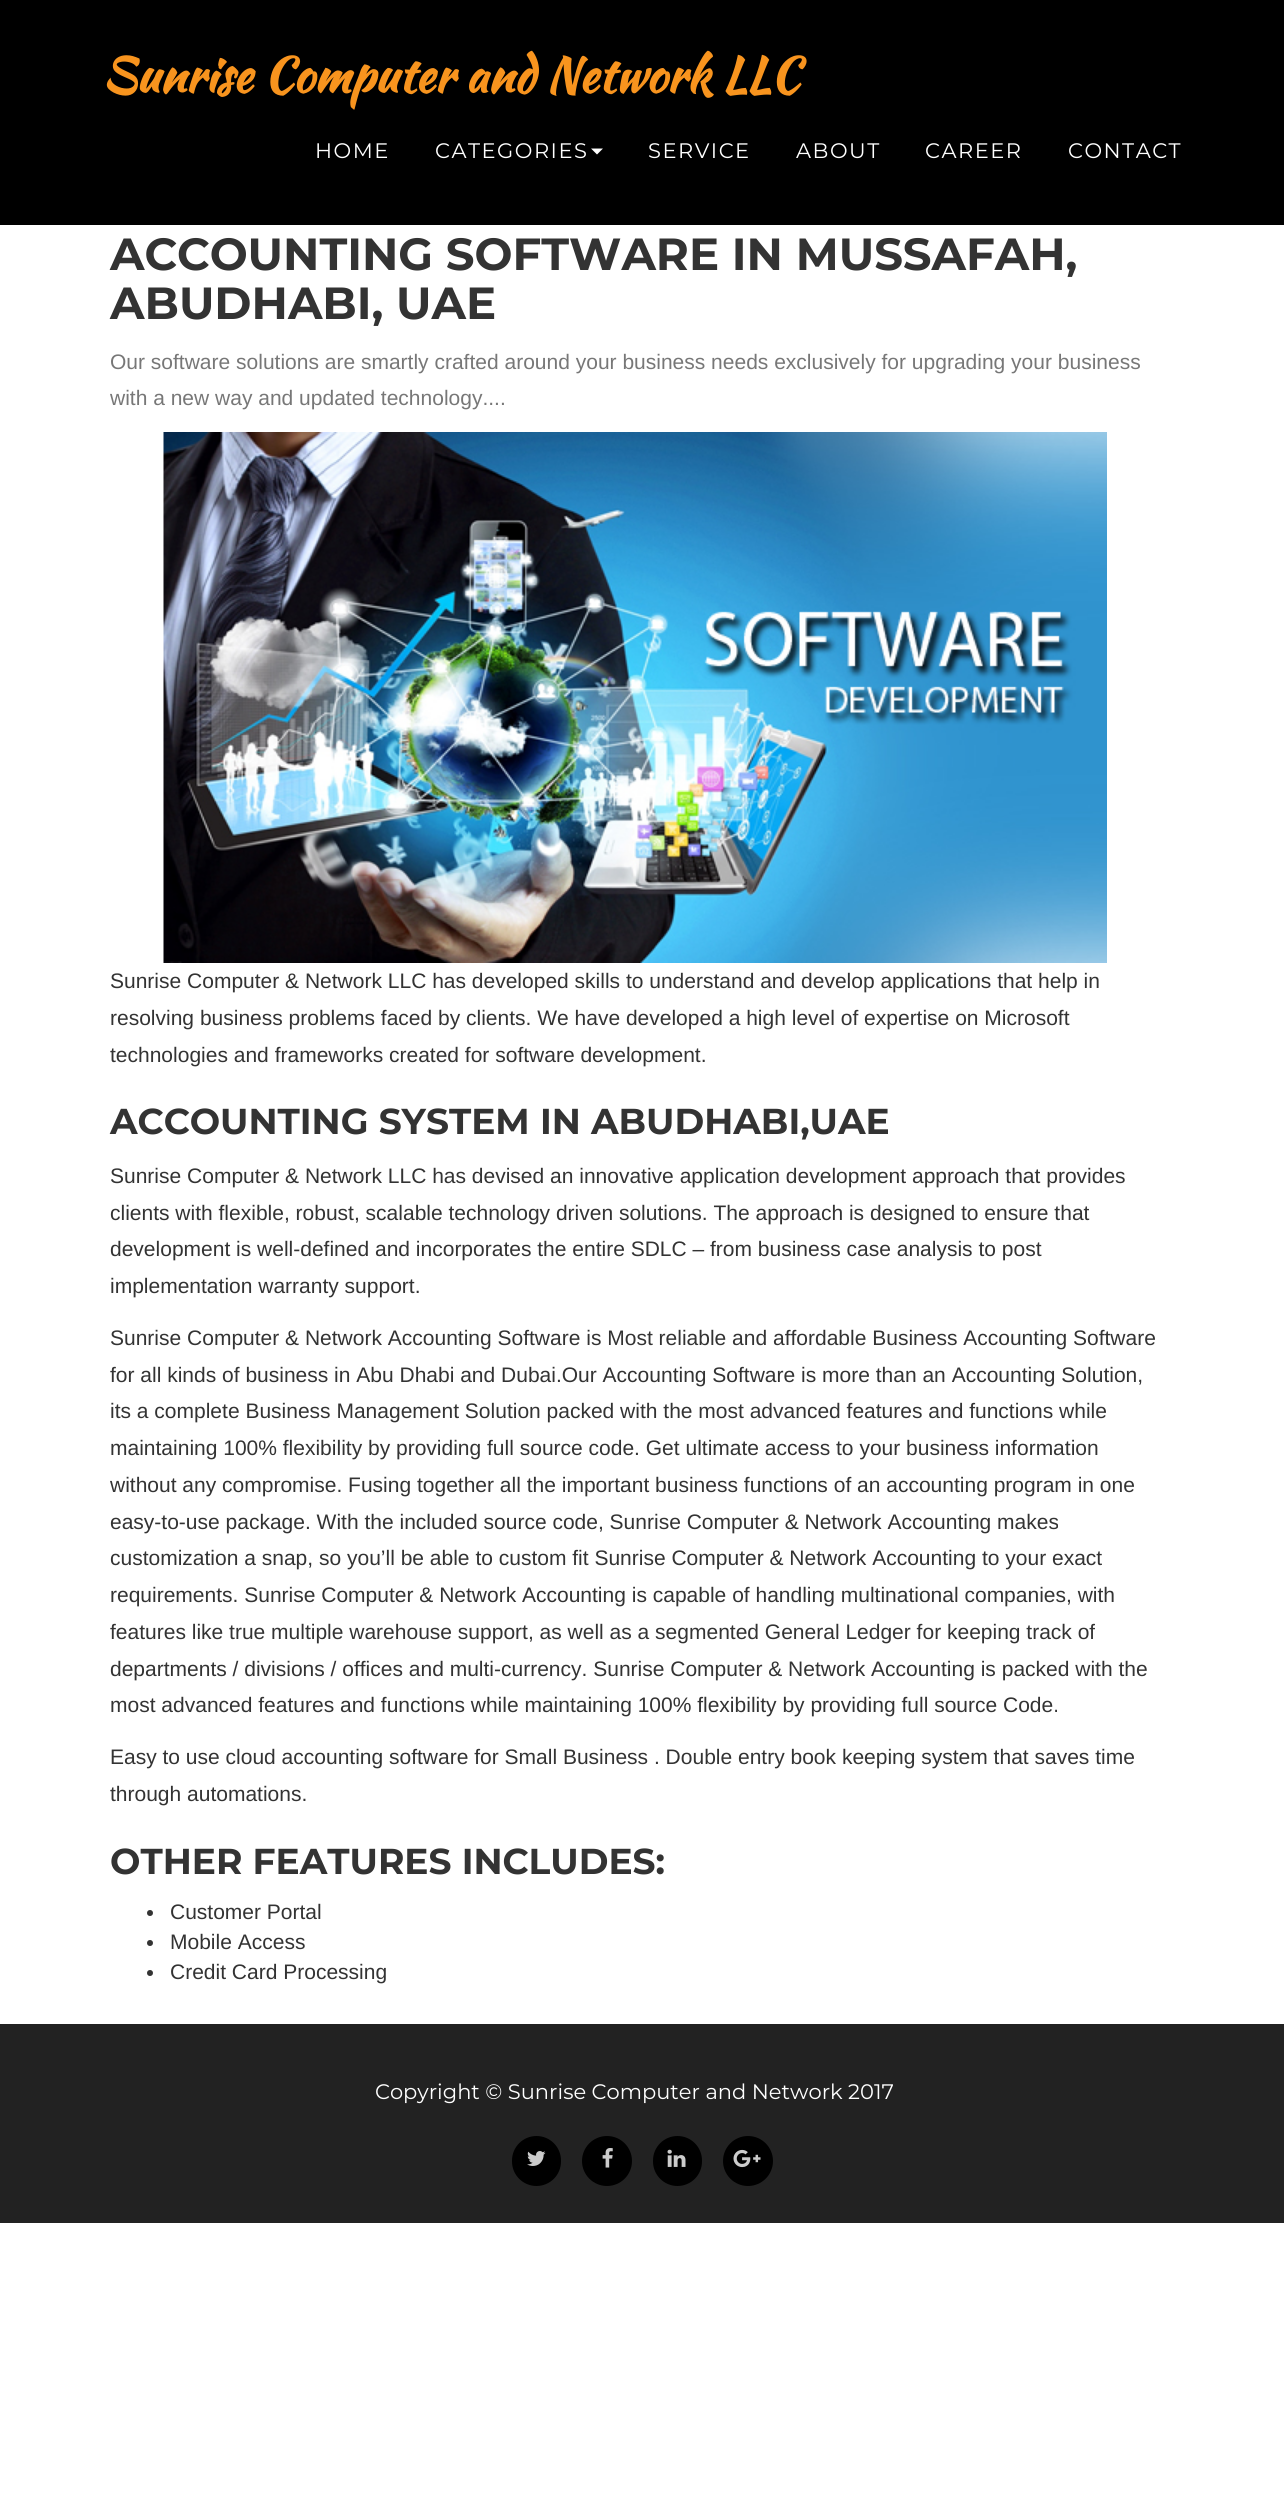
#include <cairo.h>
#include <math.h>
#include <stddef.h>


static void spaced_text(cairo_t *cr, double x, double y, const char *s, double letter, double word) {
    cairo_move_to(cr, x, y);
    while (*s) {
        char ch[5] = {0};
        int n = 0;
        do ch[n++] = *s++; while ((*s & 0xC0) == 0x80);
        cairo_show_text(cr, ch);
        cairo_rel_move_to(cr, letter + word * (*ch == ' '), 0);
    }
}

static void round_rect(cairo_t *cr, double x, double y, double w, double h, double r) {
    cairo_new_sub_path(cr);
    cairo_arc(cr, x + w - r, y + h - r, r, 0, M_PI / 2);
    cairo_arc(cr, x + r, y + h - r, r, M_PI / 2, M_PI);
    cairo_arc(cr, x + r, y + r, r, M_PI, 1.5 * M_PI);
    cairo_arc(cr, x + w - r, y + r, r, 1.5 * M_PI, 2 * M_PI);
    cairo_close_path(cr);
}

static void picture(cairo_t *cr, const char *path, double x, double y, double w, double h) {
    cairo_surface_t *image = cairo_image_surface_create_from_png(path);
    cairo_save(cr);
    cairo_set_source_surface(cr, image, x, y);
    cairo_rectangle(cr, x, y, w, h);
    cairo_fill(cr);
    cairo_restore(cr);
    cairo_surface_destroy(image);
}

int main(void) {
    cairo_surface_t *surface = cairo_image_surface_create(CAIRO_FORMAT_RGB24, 1284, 2495);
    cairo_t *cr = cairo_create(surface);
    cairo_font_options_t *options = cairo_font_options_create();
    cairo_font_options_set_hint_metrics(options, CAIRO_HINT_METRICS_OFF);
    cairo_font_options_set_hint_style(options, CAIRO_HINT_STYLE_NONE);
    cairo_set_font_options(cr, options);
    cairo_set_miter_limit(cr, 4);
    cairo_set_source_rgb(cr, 1, 1, 1);
    cairo_paint(cr);
    cairo_set_source_rgb(cr, 0, 0, 0);
    cairo_rectangle(cr, 0, 0, 1284, 225);
    cairo_fill(cr);
    cairo_select_font_face(cr, "Kaushan Script", CAIRO_FONT_SLANT_NORMAL, CAIRO_FONT_WEIGHT_BOLD);
    cairo_set_font_size(cr, 48);
    cairo_set_source_rgb(cr, 0.969, 0.58, 0.118);
    cairo_move_to(cr, 102, 92);
    cairo_show_text(cr, "Sunrise Computer and Network LLC");
    cairo_select_font_face(cr, "Montserrat", CAIRO_FONT_SLANT_NORMAL, CAIRO_FONT_WEIGHT_NORMAL);
    cairo_set_font_size(cr, 21);
    cairo_set_source_rgb(cr, 1, 1, 1);
    spaced_text(cr, 315, 158, "HOME", 1.5, 0);
    spaced_text(cr, 435, 158, "CATEGORIES", 1.5, 0);
    cairo_new_path(cr);
    cairo_move_to(cr, 591, 148.5);
    cairo_line_to(cr, 603, 148.5);
    cairo_line_to(cr, 597, 154.5);
    cairo_close_path(cr);
    cairo_fill(cr);
    spaced_text(cr, 648, 158, "SERVICE", 1.5, 0);
    spaced_text(cr, 796, 158, "ABOUT", 1.5, 0);
    spaced_text(cr, 925, 158, "CAREER", 1.5, 0);
    spaced_text(cr, 1068, 158, "CONTACT", 1.5, 0);
    cairo_select_font_face(cr, "Montserrat", CAIRO_FONT_SLANT_NORMAL, CAIRO_FONT_WEIGHT_BOLD);
    cairo_set_font_size(cr, 45);
    cairo_set_source_rgb(cr, 0.2, 0.2, 0.2);
    cairo_move_to(cr, 110, 270);
    cairo_show_text(cr, "ACCOUNTING SOFTWARE IN MUSSAFAH,");
    cairo_move_to(cr, 110, 319);
    cairo_show_text(cr, "ABUDHABI, UAE");
    cairo_select_font_face(cr, "Liberation Sans", CAIRO_FONT_SLANT_NORMAL, CAIRO_FONT_WEIGHT_NORMAL);
    cairo_set_font_size(cr, 21);
    cairo_set_source_rgb(cr, 0.467, 0.467, 0.467);
    cairo_move_to(cr, 110, 369);
    cairo_show_text(cr, "Our software solutions are smartly crafted around your business needs exclusively for upgrading your business");
    cairo_move_to(cr, 110, 405);
    cairo_show_text(cr, "with a new way and updated technology....");
    picture(cr, "img1.png", 163, 432, 944, 531);
    cairo_set_source_rgb(cr, 0.2, 0.2, 0.2);
    cairo_move_to(cr, 110, 988);
    cairo_show_text(cr, "Sunrise Computer & Network LLC has developed skills to understand and develop applications that help in");
    cairo_move_to(cr, 110, 1025);
    cairo_show_text(cr, "resolving business problems faced by clients. We have developed a high level of expertise on Microsoft");
    cairo_move_to(cr, 110, 1062);
    cairo_show_text(cr, "technologies and frameworks created for software development.");
    cairo_select_font_face(cr, "Montserrat", CAIRO_FONT_SLANT_NORMAL, CAIRO_FONT_WEIGHT_BOLD);
    cairo_set_font_size(cr, 36);
    cairo_move_to(cr, 110, 1134);
    cairo_show_text(cr, "ACCOUNTING SYSTEM IN ABUDHABI,UAE");
    cairo_select_font_face(cr, "Liberation Sans", CAIRO_FONT_SLANT_NORMAL, CAIRO_FONT_WEIGHT_NORMAL);
    cairo_set_font_size(cr, 21);
    cairo_move_to(cr, 110, 1183);
    cairo_show_text(cr, "Sunrise Computer & Network LLC has devised an innovative application development approach that provides");
    cairo_move_to(cr, 110, 1220);
    cairo_show_text(cr, "clients with flexible, robust, scalable technology driven solutions. The approach is designed to ensure that");
    cairo_move_to(cr, 110, 1256);
    cairo_show_text(cr, "development is well-defined and incorporates the entire SDLC – from business case analysis to post");
    cairo_move_to(cr, 110, 1293);
    cairo_show_text(cr, "implementation warranty support.");
    cairo_move_to(cr, 110, 1345);
    cairo_show_text(cr, "Sunrise Computer & Network Accounting Software is Most reliable and affordable Business Accounting Software");
    cairo_move_to(cr, 110, 1382);
    cairo_show_text(cr, "for all kinds of business in Abu Dhabi and Dubai.Our Accounting Software is more than an Accounting Solution,");
    cairo_move_to(cr, 110, 1418);
    cairo_show_text(cr, "its a complete Business Management Solution packed with the most advanced features and functions while");
    cairo_move_to(cr, 110, 1455);
    cairo_show_text(cr, "maintaining 100% flexibility by providing full source code. Get ultimate access to your business information");
    cairo_move_to(cr, 110, 1492);
    cairo_show_text(cr, "without any compromise. Fusing together all the important business functions of an accounting program in one");
    cairo_move_to(cr, 110, 1529);
    cairo_show_text(cr, "easy-to-use package. With the included source code, Sunrise Computer & Network Accounting makes");
    cairo_move_to(cr, 110, 1565);
    cairo_show_text(cr, "customization a snap, so you’ll be able to custom fit Sunrise Computer & Network Accounting to your exact");
    cairo_move_to(cr, 110, 1602);
    cairo_show_text(cr, "requirements. Sunrise Computer & Network Accounting is capable of handling multinational companies, with");
    cairo_move_to(cr, 110, 1639);
    cairo_show_text(cr, "features like true multiple warehouse support, as well as a segmented General Ledger for keeping track of");
    cairo_move_to(cr, 110, 1676);
    cairo_show_text(cr, "departments / divisions / offices and multi-currency. Sunrise Computer & Network Accounting is packed with the");
    cairo_move_to(cr, 110, 1712);
    cairo_show_text(cr, "most advanced features and functions while maintaining 100% flexibility by providing full source Code.");
    cairo_move_to(cr, 110, 1764);
    cairo_show_text(cr, "Easy to use cloud accounting software for Small Business . Double entry book keeping system that saves time");
    cairo_move_to(cr, 110, 1801);
    cairo_show_text(cr, "through automations.");
    cairo_select_font_face(cr, "Montserrat", CAIRO_FONT_SLANT_NORMAL, CAIRO_FONT_WEIGHT_BOLD);
    cairo_set_font_size(cr, 36);
    cairo_move_to(cr, 110, 1874);
    cairo_show_text(cr, "OTHER FEATURES INCLUDES:");
    cairo_new_path(cr);
    cairo_arc(cr, 150, 1913, 3, 0, 2 * M_PI);
    cairo_fill(cr);
    cairo_select_font_face(cr, "Liberation Sans", CAIRO_FONT_SLANT_NORMAL, CAIRO_FONT_WEIGHT_NORMAL);
    cairo_set_font_size(cr, 21);
    cairo_move_to(cr, 170, 1919);
    cairo_show_text(cr, "Customer Portal");
    cairo_new_path(cr);
    cairo_arc(cr, 150, 1943, 3, 0, 2 * M_PI);
    cairo_fill(cr);
    cairo_move_to(cr, 170, 1949);
    cairo_show_text(cr, "Mobile Access");
    cairo_new_path(cr);
    cairo_arc(cr, 150, 1973, 3, 0, 2 * M_PI);
    cairo_fill(cr);
    cairo_move_to(cr, 170, 1979);
    cairo_show_text(cr, "Credit Card Processing");
    cairo_set_source_rgb(cr, 0.133, 0.133, 0.133);
    cairo_rectangle(cr, 0, 2024, 1284, 199);
    cairo_fill(cr);
    cairo_select_font_face(cr, "Montserrat", CAIRO_FONT_SLANT_NORMAL, CAIRO_FONT_WEIGHT_NORMAL);
    cairo_set_source_rgb(cr, 1, 1, 1);
    cairo_move_to(cr, 375, 2099);
    cairo_show_text(cr, "Copyright © Sunrise Computer and Network 2017");
    cairo_set_source_rgb(cr, 0, 0, 0);
    round_rect(cr, 512, 2136, 49, 50, 24.5);
    cairo_fill(cr);
    picture(cr, "img2.png", 527, 2151, 19, 15);
    cairo_arc(cr, 607, 2161, 25, 0, 2 * M_PI);
    cairo_fill(cr);
    picture(cr, "img3.png", 602, 2148, 11, 20);
    round_rect(cr, 653, 2136, 49, 50, 24.5);
    cairo_fill(cr);
    picture(cr, "img4.png", 667, 2149, 19, 18);
    cairo_arc(cr, 748, 2161, 25, 0, 2 * M_PI);
    cairo_fill(cr);
    picture(cr, "img5.png", 733, 2149, 28, 19);
    cairo_surface_write_to_png(surface, "page.png");
    cairo_font_options_destroy(options);
    cairo_destroy(cr);
    cairo_surface_destroy(surface);
    return 0;
}
